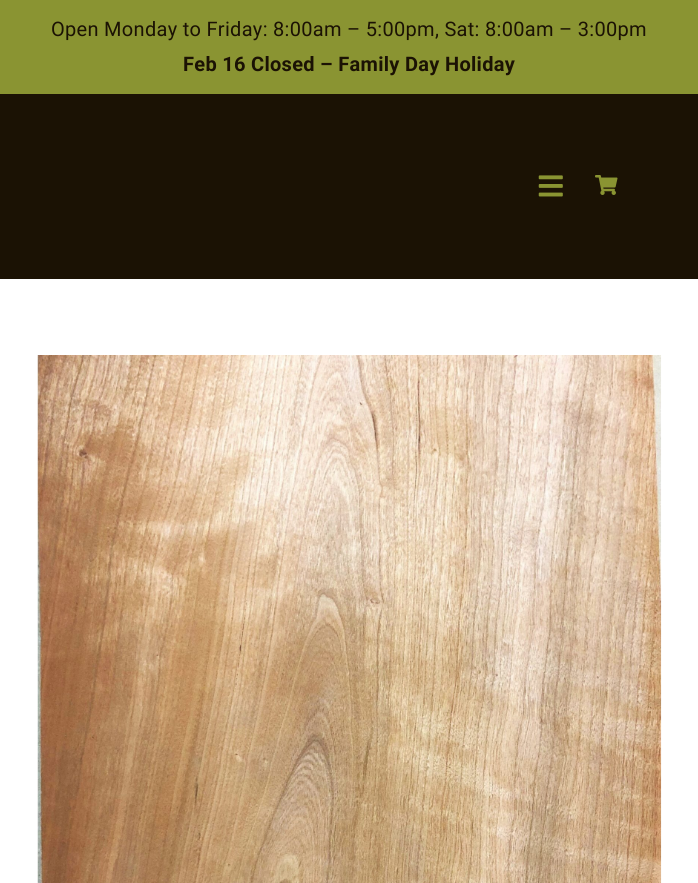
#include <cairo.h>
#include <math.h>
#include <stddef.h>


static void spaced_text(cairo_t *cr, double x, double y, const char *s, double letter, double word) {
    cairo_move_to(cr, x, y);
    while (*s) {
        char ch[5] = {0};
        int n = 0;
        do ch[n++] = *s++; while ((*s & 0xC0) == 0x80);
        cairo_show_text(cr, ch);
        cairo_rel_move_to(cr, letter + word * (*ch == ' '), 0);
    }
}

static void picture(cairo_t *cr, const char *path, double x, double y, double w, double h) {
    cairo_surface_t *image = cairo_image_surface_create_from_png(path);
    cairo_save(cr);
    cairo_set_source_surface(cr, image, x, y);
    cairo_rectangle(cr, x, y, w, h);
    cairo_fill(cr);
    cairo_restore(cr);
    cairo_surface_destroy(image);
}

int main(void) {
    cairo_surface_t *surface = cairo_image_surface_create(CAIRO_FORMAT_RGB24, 698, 883);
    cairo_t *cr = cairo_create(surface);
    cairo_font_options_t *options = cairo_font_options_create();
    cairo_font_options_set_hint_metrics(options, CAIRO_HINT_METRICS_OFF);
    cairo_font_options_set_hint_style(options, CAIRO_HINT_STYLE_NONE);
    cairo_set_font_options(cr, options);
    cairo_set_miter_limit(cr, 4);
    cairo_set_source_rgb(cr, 1, 1, 1);
    cairo_paint(cr);
    cairo_set_source_rgb(cr, 0.541, 0.58, 0.196);
    cairo_rectangle(cr, 0, 0, 698, 94);
    cairo_fill(cr);
    cairo_select_font_face(cr, "Roboto", CAIRO_FONT_SLANT_NORMAL, CAIRO_FONT_WEIGHT_NORMAL);
    cairo_set_font_size(cr, 20);
    cairo_set_source_rgb(cr, 0.106, 0.071, 0.016);
    spaced_text(cr, 51, 36, "Open Monday to Friday: 8:00am – 5:00pm, Sat: 8:00am – 3:00pm", 0.3, 0);
    cairo_select_font_face(cr, "Roboto", CAIRO_FONT_SLANT_NORMAL, CAIRO_FONT_WEIGHT_BOLD);
    spaced_text(cr, 183, 71, "Feb 16 Closed – Family Day Holiday", 0.3, 0);
    cairo_rectangle(cr, 0, 94, 698, 185);
    cairo_fill(cr);
    picture(cr, "img1.png", 538, 175, 25, 22);
    picture(cr, "img2.png", 595, 175, 23, 20);
    picture(cr, "img3.png", 37, 355, 625, 528);
    cairo_surface_write_to_png(surface, "page.png");
    cairo_font_options_destroy(options);
    cairo_destroy(cr);
    cairo_surface_destroy(surface);
    return 0;
}
